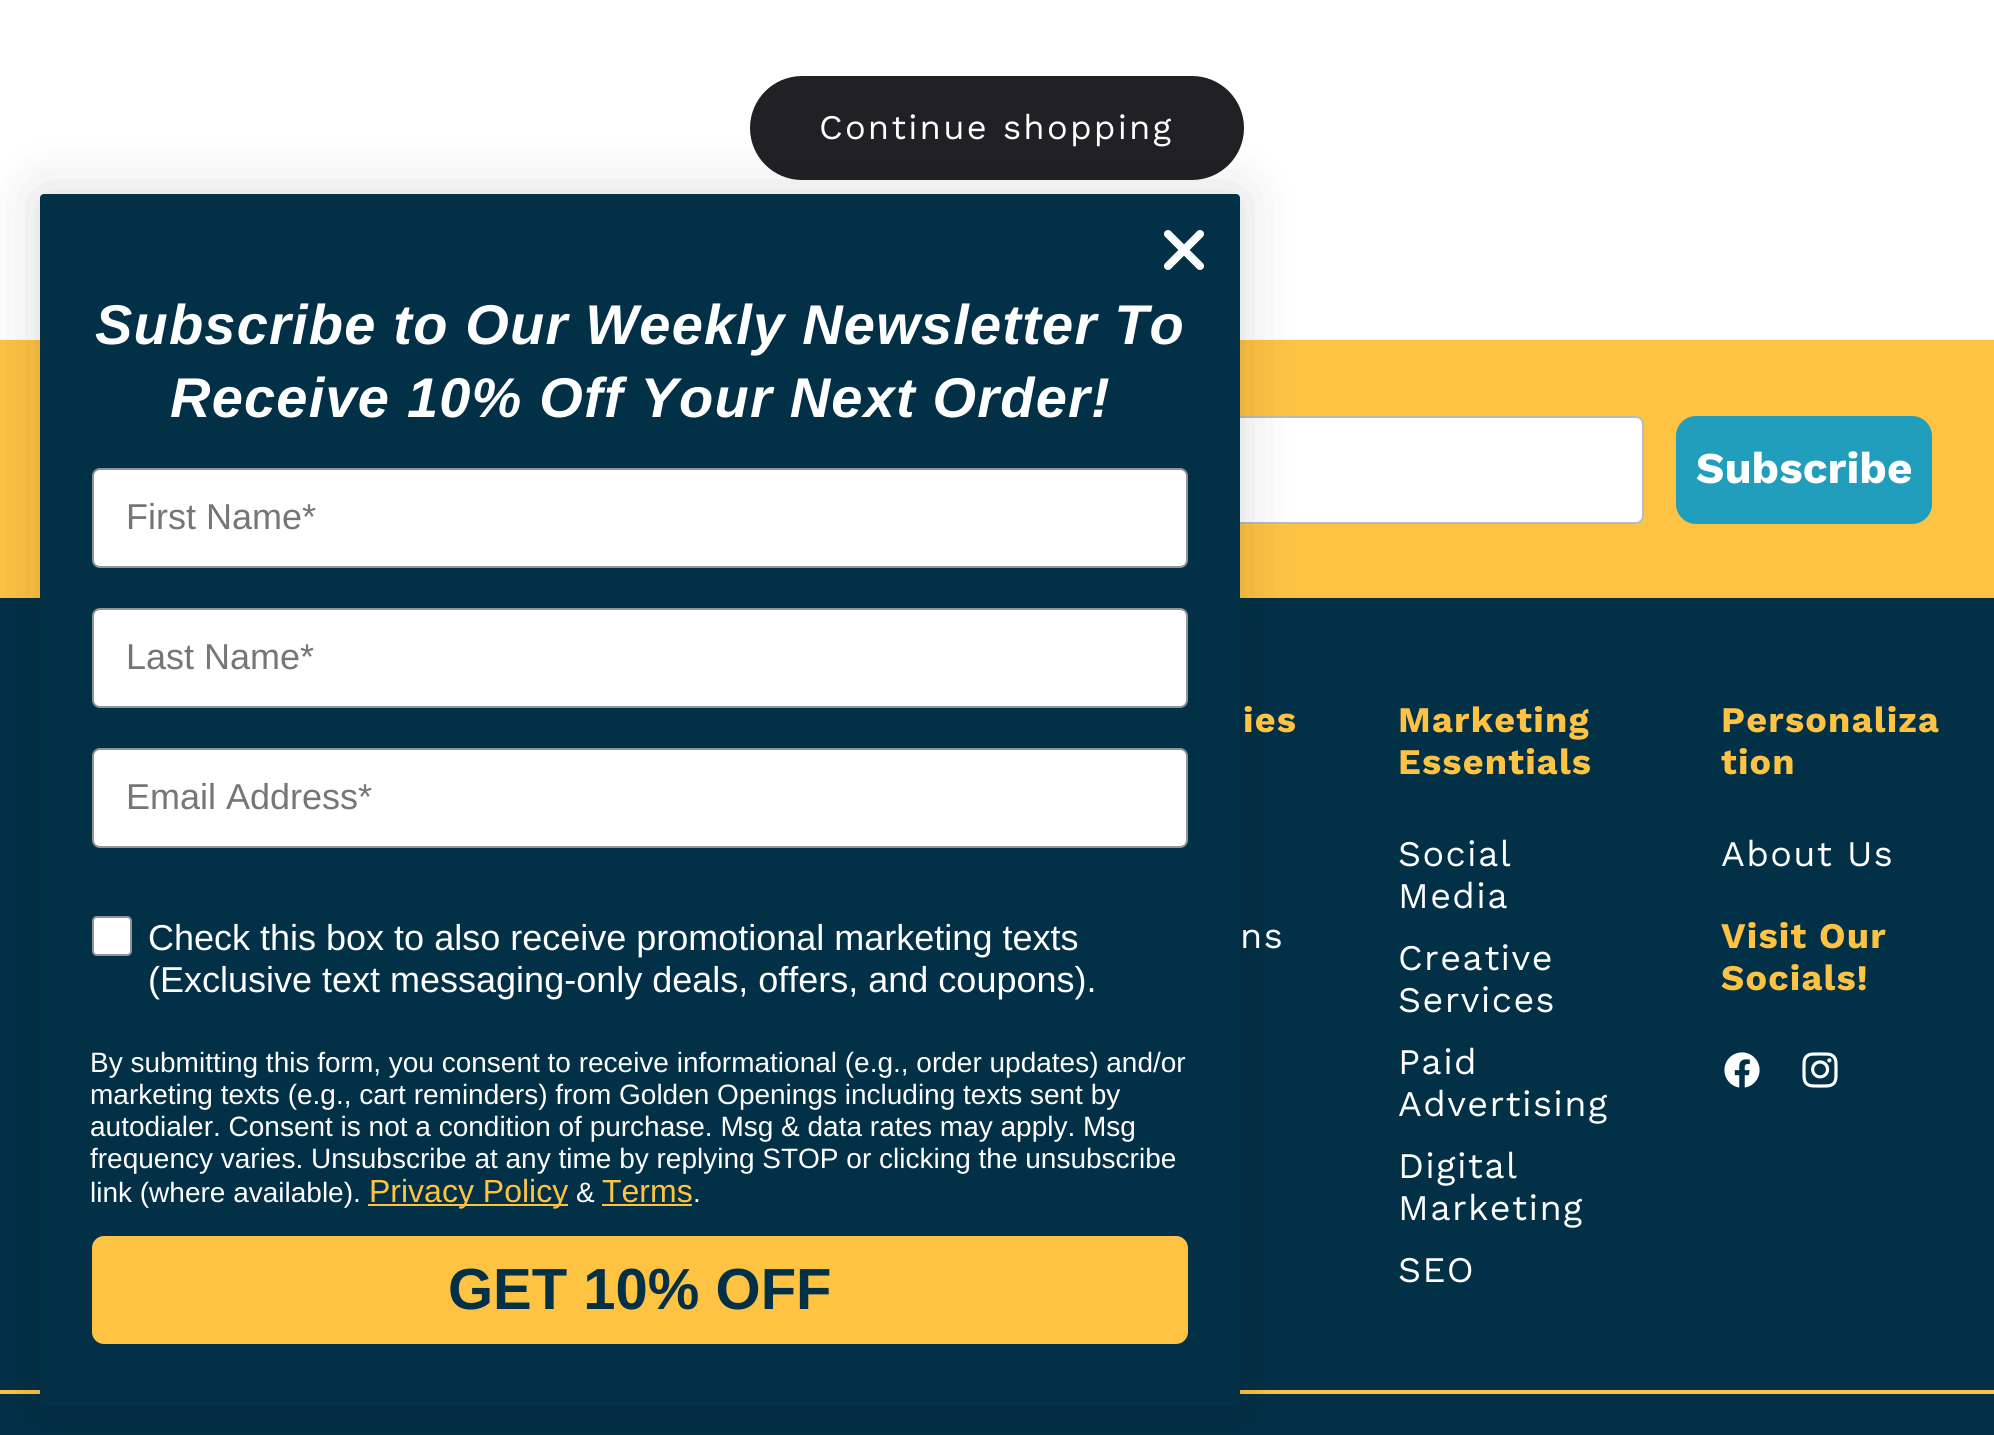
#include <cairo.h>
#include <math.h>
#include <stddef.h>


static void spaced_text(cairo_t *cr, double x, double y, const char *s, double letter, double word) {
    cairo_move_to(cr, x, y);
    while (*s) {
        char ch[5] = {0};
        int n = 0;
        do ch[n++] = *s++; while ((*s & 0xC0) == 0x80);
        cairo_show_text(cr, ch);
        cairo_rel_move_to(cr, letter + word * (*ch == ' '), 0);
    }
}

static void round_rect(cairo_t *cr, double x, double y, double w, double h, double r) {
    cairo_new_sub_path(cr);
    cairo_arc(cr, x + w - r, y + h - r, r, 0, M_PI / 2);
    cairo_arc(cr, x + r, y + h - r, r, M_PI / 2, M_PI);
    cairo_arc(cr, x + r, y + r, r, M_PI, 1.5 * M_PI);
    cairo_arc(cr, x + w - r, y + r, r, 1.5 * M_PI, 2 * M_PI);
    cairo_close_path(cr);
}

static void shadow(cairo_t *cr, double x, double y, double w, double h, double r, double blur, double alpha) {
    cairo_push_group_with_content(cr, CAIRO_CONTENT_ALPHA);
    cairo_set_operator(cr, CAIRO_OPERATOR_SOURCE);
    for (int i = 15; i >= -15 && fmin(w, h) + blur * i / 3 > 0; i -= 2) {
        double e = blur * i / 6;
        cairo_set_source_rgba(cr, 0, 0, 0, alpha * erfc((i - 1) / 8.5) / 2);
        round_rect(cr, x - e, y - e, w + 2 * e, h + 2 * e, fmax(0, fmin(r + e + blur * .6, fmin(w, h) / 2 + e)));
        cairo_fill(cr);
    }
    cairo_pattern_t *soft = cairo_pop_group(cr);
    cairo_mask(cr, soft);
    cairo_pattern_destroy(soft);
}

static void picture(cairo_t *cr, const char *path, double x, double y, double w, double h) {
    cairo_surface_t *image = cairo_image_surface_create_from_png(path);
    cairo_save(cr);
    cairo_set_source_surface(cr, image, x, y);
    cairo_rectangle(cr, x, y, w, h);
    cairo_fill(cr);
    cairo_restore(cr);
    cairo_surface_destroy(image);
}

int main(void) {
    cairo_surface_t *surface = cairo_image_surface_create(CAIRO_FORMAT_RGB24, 1994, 1435);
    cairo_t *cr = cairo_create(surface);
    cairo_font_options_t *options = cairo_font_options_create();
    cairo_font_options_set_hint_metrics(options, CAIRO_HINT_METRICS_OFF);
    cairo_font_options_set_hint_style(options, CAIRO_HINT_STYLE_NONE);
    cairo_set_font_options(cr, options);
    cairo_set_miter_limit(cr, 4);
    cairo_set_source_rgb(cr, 1, 1, 1);
    cairo_paint(cr);
    cairo_set_source_rgb(cr, 0.129, 0.129, 0.145);
    round_rect(cr, 750, 76, 494, 104, 52);
    cairo_fill(cr);
    cairo_select_font_face(cr, "Work Sans", CAIRO_FONT_SLANT_NORMAL, CAIRO_FONT_WEIGHT_NORMAL);
    cairo_set_font_size(cr, 34.5);
    cairo_set_source_rgb(cr, 1, 1, 1);
    spaced_text(cr, 819, 139, "Continue shopping", 2.25, 0);
    cairo_set_source_rgb(cr, 0.008, 0.188, 0.278);
    cairo_rectangle(cr, 0, 598, 1994, 837);
    cairo_fill(cr);
    cairo_set_source_rgb(cr, 0.996, 0.765, 0.263);
    cairo_rectangle(cr, 0, 340, 1994, 258);
    cairo_fill(cr);
    cairo_set_source_rgb(cr, 1, 1, 1);
    round_rect(cr, 1049, 417, 594, 106, 7);
    cairo_fill_preserve(cr);
    cairo_set_source_rgb(cr, 0.706, 0.733, 0.765);
    cairo_stroke(cr);
    cairo_set_source_rgb(cr, 0.996, 0.765, 0.263);
    cairo_rectangle(cr, 0, 1390, 1994, 4);
    cairo_fill(cr);
    cairo_set_source_rgb(cr, 0, 0, 0);
    shadow(cr, 40, 194, 1200, 1212, 0, 30, 0.15);
    cairo_set_source_rgb(cr, 0.008, 0.188, 0.278);
    round_rect(cr, 40, 194, 1200, 1212, 4);
    cairo_fill(cr);
    cairo_new_path(cr);
    cairo_move_to(cr, 1168, 234);
    cairo_line_to(cr, 1200, 266);
    cairo_move_to(cr, 1168, 266);
    cairo_line_to(cr, 1200, 234);
    cairo_close_path(cr);
    cairo_set_source_rgb(cr, 1, 1, 1);
    cairo_set_line_width(cr, 8);
    cairo_set_line_cap(cr, CAIRO_LINE_CAP_ROUND);
    cairo_set_line_join(cr, CAIRO_LINE_JOIN_ROUND);
    cairo_stroke(cr);
    cairo_select_font_face(cr, "Liberation Sans", CAIRO_FONT_SLANT_ITALIC, CAIRO_FONT_WEIGHT_BOLD);
    cairo_set_font_size(cr, 56);
    spaced_text(cr, 95, 344, "Subscribe to Our Weekly Newsletter To", 1.2, 0);
    spaced_text(cr, 170, 417, "Receive 10% Off Your Next Order!", 1.2, 0);
    round_rect(cr, 93, 469, 1094, 98, 7);
    cairo_fill_preserve(cr);
    cairo_set_source_rgb(cr, 0.58, 0.584, 0.588);
    cairo_set_line_width(cr, 2);
    cairo_set_line_cap(cr, CAIRO_LINE_CAP_BUTT);
    cairo_set_line_join(cr, CAIRO_LINE_JOIN_MITER);
    cairo_stroke(cr);
    cairo_select_font_face(cr, "Liberation Sans", CAIRO_FONT_SLANT_NORMAL, CAIRO_FONT_WEIGHT_NORMAL);
    cairo_set_font_size(cr, 36);
    cairo_set_source_rgb(cr, 0.463, 0.463, 0.463);
    cairo_move_to(cr, 126, 529);
    cairo_show_text(cr, "First Name*");
    cairo_set_source_rgb(cr, 1, 1, 1);
    round_rect(cr, 93, 609, 1094, 98, 7);
    cairo_fill_preserve(cr);
    cairo_set_source_rgb(cr, 0.58, 0.584, 0.588);
    cairo_stroke(cr);
    cairo_set_source_rgb(cr, 0.463, 0.463, 0.463);
    cairo_move_to(cr, 126, 669);
    cairo_show_text(cr, "Last Name*");
    cairo_set_source_rgb(cr, 1, 1, 1);
    round_rect(cr, 93, 749, 1094, 98, 7);
    cairo_fill_preserve(cr);
    cairo_set_source_rgb(cr, 0.58, 0.584, 0.588);
    cairo_stroke(cr);
    cairo_set_source_rgb(cr, 0.463, 0.463, 0.463);
    cairo_move_to(cr, 126, 809);
    cairo_show_text(cr, "Email Address*");
    cairo_set_source_rgb(cr, 1, 1, 1);
    round_rect(cr, 93, 917, 38, 38, 4);
    cairo_fill_preserve(cr);
    cairo_set_source_rgb(cr, 0.58, 0.584, 0.588);
    cairo_stroke(cr);
    cairo_set_source_rgb(cr, 1, 1, 1);
    cairo_move_to(cr, 148, 950);
    cairo_show_text(cr, "Check this box to also receive promotional marketing texts");
    cairo_move_to(cr, 148, 992);
    cairo_show_text(cr, "(Exclusive text messaging-only deals, offers, and coupons).");
    cairo_set_font_size(cr, 28);
    cairo_move_to(cr, 90, 1072);
    cairo_show_text(cr, "By submitting this form, you consent to receive informational (e.g., order updates) and/or");
    cairo_move_to(cr, 90, 1104);
    cairo_show_text(cr, "marketing texts (e.g., cart reminders) from Golden Openings including texts sent by");
    cairo_move_to(cr, 90, 1136);
    cairo_show_text(cr, "autodialer. Consent is not a condition of purchase. Msg & data rates may apply. Msg");
    cairo_move_to(cr, 90, 1168);
    cairo_show_text(cr, "frequency varies. Unsubscribe at any time by replying STOP or clicking the unsubscribe");
    cairo_move_to(cr, 90, 1202);
    cairo_show_text(cr, "link (where available).");
    cairo_set_source_rgb(cr, 0.996, 0.765, 0.263);
    cairo_rectangle(cr, 368, 1204, 200, 2);
    cairo_fill(cr);
    cairo_set_font_size(cr, 32);
    cairo_move_to(cr, 369, 1202);
    cairo_show_text(cr, "Privacy Policy");
    cairo_set_font_size(cr, 28);
    cairo_set_source_rgb(cr, 1, 1, 1);
    cairo_move_to(cr, 576, 1202);
    cairo_show_text(cr, "&");
    cairo_set_font_size(cr, 32);
    cairo_set_source_rgb(cr, 0.996, 0.765, 0.263);
    cairo_move_to(cr, 602, 1202);
    cairo_show_text(cr, "Terms");
    cairo_rectangle(cr, 602, 1204, 90, 2);
    cairo_fill(cr);
    cairo_set_font_size(cr, 28);
    cairo_set_source_rgb(cr, 1, 1, 1);
    cairo_move_to(cr, 693, 1202);
    cairo_show_text(cr, ".");
    cairo_set_source_rgb(cr, 0.996, 0.765, 0.263);
    round_rect(cr, 92, 1236, 1096, 108, 12);
    cairo_fill(cr);
    cairo_select_font_face(cr, "Liberation Sans", CAIRO_FONT_SLANT_NORMAL, CAIRO_FONT_WEIGHT_BOLD);
    cairo_set_font_size(cr, 58);
    cairo_set_source_rgb(cr, 0.008, 0.188, 0.278);
    cairo_move_to(cr, 448, 1309);
    cairo_show_text(cr, "GET 10% OFF");
    cairo_set_source_rgb(cr, 0.129, 0.62, 0.737);
    round_rect(cr, 1676, 416, 256, 108, 20);
    cairo_fill(cr);
    cairo_select_font_face(cr, "Work Sans", CAIRO_FONT_SLANT_NORMAL, CAIRO_FONT_WEIGHT_BOLD);
    cairo_set_font_size(cr, 44);
    cairo_set_source_rgb(cr, 1, 1, 1);
    cairo_move_to(cr, 1696, 483);
    cairo_show_text(cr, "Subscribe");
    cairo_set_font_size(cr, 36);
    cairo_set_source_rgb(cr, 0.996, 0.765, 0.263);
    spaced_text(cr, 1243, 732, "ies", 1.2, 0);
    cairo_select_font_face(cr, "Work Sans", CAIRO_FONT_SLANT_NORMAL, CAIRO_FONT_WEIGHT_NORMAL);
    cairo_set_source_rgb(cr, 1, 1, 1);
    spaced_text(cr, 1240, 948, "ns", 1.4, 0);
    cairo_select_font_face(cr, "Work Sans", CAIRO_FONT_SLANT_NORMAL, CAIRO_FONT_WEIGHT_BOLD);
    cairo_set_source_rgb(cr, 0.996, 0.765, 0.263);
    spaced_text(cr, 1398, 732, "Marketing", 1.2, 0);
    spaced_text(cr, 1398, 774, "Essentials", 1.2, 0);
    cairo_select_font_face(cr, "Work Sans", CAIRO_FONT_SLANT_NORMAL, CAIRO_FONT_WEIGHT_NORMAL);
    cairo_set_source_rgb(cr, 1, 1, 1);
    spaced_text(cr, 1398, 866, "Social", 1.4, 0);
    spaced_text(cr, 1398, 908, "Media", 1.4, 0);
    spaced_text(cr, 1398, 970, "Creative", 1.4, 0);
    spaced_text(cr, 1398, 1012, "Services", 1.4, 0);
    spaced_text(cr, 1398, 1074, "Paid", 1.4, 0);
    spaced_text(cr, 1398, 1116, "Advertising", 1.4, 0);
    spaced_text(cr, 1398, 1178, "Digital", 1.4, 0);
    spaced_text(cr, 1398, 1220, "Marketing", 1.4, 0);
    spaced_text(cr, 1398, 1282, "SEO", 1.4, 0);
    cairo_select_font_face(cr, "Work Sans", CAIRO_FONT_SLANT_NORMAL, CAIRO_FONT_WEIGHT_BOLD);
    cairo_set_source_rgb(cr, 0.996, 0.765, 0.263);
    spaced_text(cr, 1721, 732, "Personaliza", 1.2, 0);
    spaced_text(cr, 1721, 774, "tion", 1.2, 0);
    cairo_select_font_face(cr, "Work Sans", CAIRO_FONT_SLANT_NORMAL, CAIRO_FONT_WEIGHT_NORMAL);
    cairo_set_source_rgb(cr, 1, 1, 1);
    spaced_text(cr, 1721, 866, "About Us", 1.4, 0);
    cairo_select_font_face(cr, "Work Sans", CAIRO_FONT_SLANT_NORMAL, CAIRO_FONT_WEIGHT_BOLD);
    cairo_set_source_rgb(cr, 0.996, 0.765, 0.263);
    spaced_text(cr, 1721, 948, "Visit Our", 1.2, 0);
    spaced_text(cr, 1721, 990, "Socials!", 1.2, 0);
    picture(cr, "img1.png", 1724, 1052, 36, 36);
    picture(cr, "img2.png", 1802, 1052, 36, 36);
    cairo_surface_write_to_png(surface, "page.png");
    cairo_font_options_destroy(options);
    cairo_destroy(cr);
    cairo_surface_destroy(surface);
    return 0;
}
